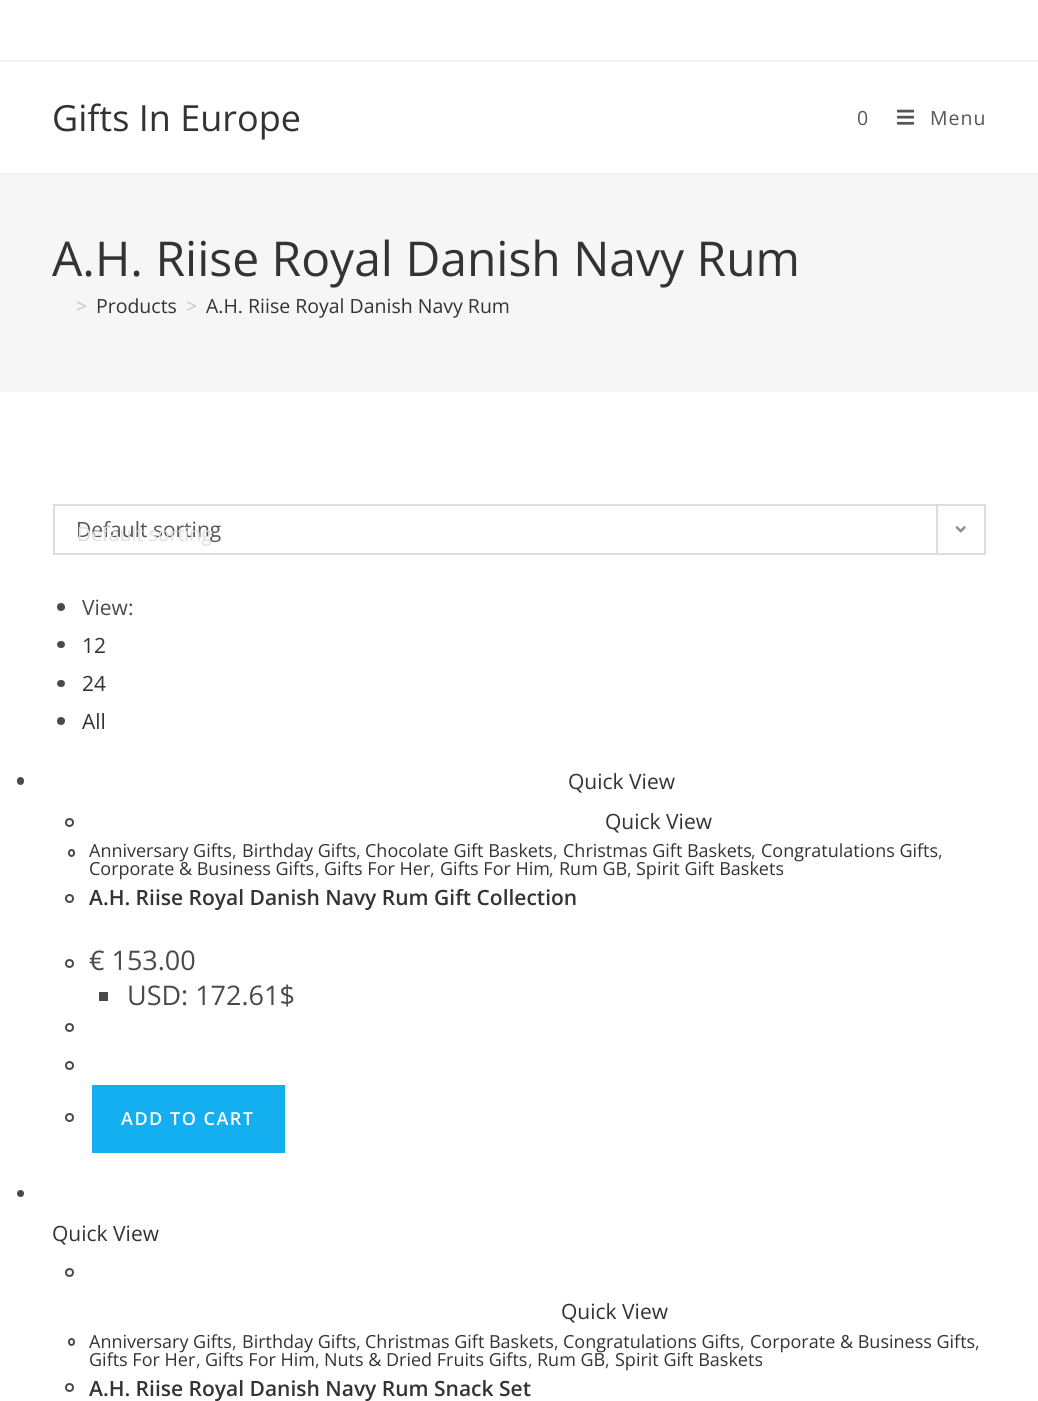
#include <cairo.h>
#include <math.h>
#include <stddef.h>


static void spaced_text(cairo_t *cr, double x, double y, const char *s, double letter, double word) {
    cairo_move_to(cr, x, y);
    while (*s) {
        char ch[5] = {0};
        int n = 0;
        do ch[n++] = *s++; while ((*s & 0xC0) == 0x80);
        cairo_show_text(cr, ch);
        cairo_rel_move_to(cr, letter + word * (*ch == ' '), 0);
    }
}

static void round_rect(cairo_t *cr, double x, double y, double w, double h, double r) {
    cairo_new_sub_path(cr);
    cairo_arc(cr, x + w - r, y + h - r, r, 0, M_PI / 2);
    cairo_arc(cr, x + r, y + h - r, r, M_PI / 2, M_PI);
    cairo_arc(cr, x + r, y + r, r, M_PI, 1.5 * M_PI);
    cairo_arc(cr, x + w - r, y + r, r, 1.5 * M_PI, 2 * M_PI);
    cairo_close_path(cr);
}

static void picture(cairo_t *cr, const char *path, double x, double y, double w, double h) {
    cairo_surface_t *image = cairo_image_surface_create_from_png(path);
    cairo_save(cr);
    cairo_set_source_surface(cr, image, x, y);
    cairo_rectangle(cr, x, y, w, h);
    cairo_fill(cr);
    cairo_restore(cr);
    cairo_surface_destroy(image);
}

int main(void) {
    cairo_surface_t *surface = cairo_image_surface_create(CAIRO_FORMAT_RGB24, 1038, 1401);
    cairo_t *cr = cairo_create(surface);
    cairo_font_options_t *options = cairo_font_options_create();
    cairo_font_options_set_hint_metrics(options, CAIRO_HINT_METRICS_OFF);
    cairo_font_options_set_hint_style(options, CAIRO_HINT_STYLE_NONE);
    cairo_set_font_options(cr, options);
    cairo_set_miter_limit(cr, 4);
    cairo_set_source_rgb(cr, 1, 1, 1);
    cairo_paint(cr);
    cairo_set_source_rgb(cr, 0.945, 0.945, 0.945);
    cairo_rectangle(cr, 0, 60, 1038, 2);
    cairo_fill(cr);
    cairo_rectangle(cr, 0, 173, 1038, 2);
    cairo_fill(cr);
    cairo_select_font_face(cr, "Open Sans", CAIRO_FONT_SLANT_NORMAL, CAIRO_FONT_WEIGHT_NORMAL);
    cairo_set_font_size(cr, 36);
    cairo_set_source_rgb(cr, 0.2, 0.2, 0.2);
    cairo_move_to(cr, 52, 131);
    cairo_show_text(cr, "Gifts In Europe");
    cairo_set_font_size(cr, 19.5);
    cairo_set_source_rgb(cr, 0.333, 0.333, 0.333);
    spaced_text(cr, 857, 125, "0", 1, 0);
    picture(cr, "img1.png", 897, 109, 18, 16);
    spaced_text(cr, 930, 125, "Menu", 1, 0);
    cairo_set_source_rgb(cr, 0.961, 0.961, 0.961);
    cairo_rectangle(cr, 0, 175, 1038, 217);
    cairo_fill(cr);
    cairo_set_font_size(cr, 48);
    cairo_set_source_rgb(cr, 0.2, 0.2, 0.2);
    cairo_move_to(cr, 52, 276);
    cairo_show_text(cr, "A.H. Riise Royal Danish Navy Rum");
    cairo_set_font_size(cr, 19.5);
    cairo_set_source_rgb(cr, 0.776, 0.776, 0.776);
    cairo_move_to(cr, 76, 313);
    cairo_show_text(cr, ">");
    cairo_set_source_rgb(cr, 0.2, 0.2, 0.2);
    cairo_move_to(cr, 96, 313);
    cairo_show_text(cr, "Products");
    cairo_set_source_rgb(cr, 0.776, 0.776, 0.776);
    cairo_move_to(cr, 186, 313);
    cairo_show_text(cr, ">");
    cairo_set_source_rgb(cr, 0.2, 0.2, 0.2);
    cairo_move_to(cr, 206, 313);
    cairo_show_text(cr, "A.H. Riise Royal Danish Navy Rum");
    cairo_rectangle(cr, 54, 505, 931, 49);
    cairo_set_source_rgb(cr, 0.867, 0.867, 0.867);
    cairo_stroke(cr);
    cairo_set_font_size(cr, 21);
    cairo_set_source_rgb(cr, 0.333, 0.333, 0.333);
    cairo_move_to(cr, 76, 537);
    cairo_show_text(cr, "Default sorting");
    cairo_set_source_rgb(cr, 0.867, 0.867, 0.867);
    cairo_rectangle(cr, 936, 506, 2, 48);
    cairo_fill(cr);
    picture(cr, "img2.png", 955, 526, 11, 7);
    cairo_set_font_size(cr, 19.5);
    cairo_set_source_rgb(cr, 0.871, 0.871, 0.871);
    cairo_move_to(cr, 77, 541);
    cairo_show_text(cr, "Default sorting");
    cairo_set_source_rgb(cr, 0.29, 0.29, 0.29);
    cairo_new_path(cr);
    cairo_arc(cr, 61, 607, 4, 0, 2 * M_PI);
    cairo_fill(cr);
    cairo_set_font_size(cr, 21);
    cairo_move_to(cr, 82, 615);
    cairo_show_text(cr, "View:");
    round_rect(cr, 57, 641, 8, 7, 3.5);
    cairo_fill(cr);
    cairo_set_source_rgb(cr, 0.2, 0.2, 0.2);
    cairo_move_to(cr, 82, 653);
    cairo_show_text(cr, "12");
    cairo_set_source_rgb(cr, 0.29, 0.29, 0.29);
    round_rect(cr, 57, 680, 8, 7, 3.5);
    cairo_fill(cr);
    cairo_set_source_rgb(cr, 0.2, 0.2, 0.2);
    cairo_move_to(cr, 82, 691);
    cairo_show_text(cr, "24");
    cairo_set_source_rgb(cr, 0.29, 0.29, 0.29);
    cairo_new_path(cr);
    cairo_arc(cr, 61, 721, 4, 0, 2 * M_PI);
    cairo_fill(cr);
    cairo_set_source_rgb(cr, 0.2, 0.2, 0.2);
    cairo_move_to(cr, 82, 729);
    cairo_show_text(cr, "All");
    cairo_set_source_rgb(cr, 0.29, 0.29, 0.29);
    round_rect(cr, 17, 777, 7, 8, 3.5);
    cairo_fill(cr);
    cairo_set_source_rgb(cr, 0.2, 0.2, 0.2);
    cairo_move_to(cr, 568, 789);
    cairo_show_text(cr, "Quick View");
    cairo_new_path(cr);
    cairo_arc(cr, 69.5, 822.5, 3.5, 0, 2 * M_PI);
    cairo_set_source_rgb(cr, 0.29, 0.29, 0.29);
    cairo_stroke(cr);
    cairo_set_source_rgb(cr, 0.2, 0.2, 0.2);
    cairo_move_to(cr, 605, 829);
    cairo_show_text(cr, "Quick View");
    round_rect(cr, 69, 850, 5, 6, 2.5);
    cairo_set_source_rgb(cr, 0.29, 0.29, 0.29);
    cairo_stroke(cr);
    cairo_set_font_size(cr, 18);
    cairo_set_source_rgb(cr, 0.2, 0.2, 0.2);
    cairo_move_to(cr, 89, 857);
    cairo_show_text(cr, "Anniversary Gifts");
    cairo_set_source_rgb(cr, 0.29, 0.29, 0.29);
    cairo_move_to(cr, 232, 857);
    cairo_show_text(cr, ",");
    cairo_set_source_rgb(cr, 0.2, 0.2, 0.2);
    cairo_move_to(cr, 242, 857);
    cairo_show_text(cr, "Birthday Gifts");
    cairo_set_source_rgb(cr, 0.29, 0.29, 0.29);
    cairo_move_to(cr, 356, 857);
    cairo_show_text(cr, ",");
    cairo_set_source_rgb(cr, 0.2, 0.2, 0.2);
    cairo_move_to(cr, 365, 857);
    cairo_show_text(cr, "Chocolate Gift Baskets");
    cairo_set_source_rgb(cr, 0.29, 0.29, 0.29);
    cairo_move_to(cr, 553, 857);
    cairo_show_text(cr, ",");
    cairo_set_source_rgb(cr, 0.2, 0.2, 0.2);
    cairo_move_to(cr, 563, 857);
    cairo_show_text(cr, "Christmas Gift Baskets");
    cairo_set_source_rgb(cr, 0.29, 0.29, 0.29);
    cairo_move_to(cr, 751, 857);
    cairo_show_text(cr, ",");
    cairo_set_source_rgb(cr, 0.2, 0.2, 0.2);
    cairo_move_to(cr, 761, 857);
    cairo_show_text(cr, "Congratulations Gifts");
    cairo_set_source_rgb(cr, 0.29, 0.29, 0.29);
    cairo_move_to(cr, 938, 857);
    cairo_show_text(cr, ",");
    cairo_set_source_rgb(cr, 0.2, 0.2, 0.2);
    cairo_move_to(cr, 89, 875);
    cairo_show_text(cr, "Corporate & Business Gifts");
    cairo_set_source_rgb(cr, 0.29, 0.29, 0.29);
    cairo_move_to(cr, 315, 875);
    cairo_show_text(cr, ",");
    cairo_set_source_rgb(cr, 0.2, 0.2, 0.2);
    cairo_move_to(cr, 324, 875);
    cairo_show_text(cr, "Gifts For Her");
    cairo_set_source_rgb(cr, 0.29, 0.29, 0.29);
    cairo_move_to(cr, 430, 875);
    cairo_show_text(cr, ",");
    cairo_set_source_rgb(cr, 0.2, 0.2, 0.2);
    cairo_move_to(cr, 440, 875);
    cairo_show_text(cr, "Gifts For Him");
    cairo_set_source_rgb(cr, 0.29, 0.29, 0.29);
    cairo_move_to(cr, 549, 875);
    cairo_show_text(cr, ",");
    cairo_set_source_rgb(cr, 0.2, 0.2, 0.2);
    cairo_move_to(cr, 559, 875);
    cairo_show_text(cr, "Rum GB");
    cairo_set_source_rgb(cr, 0.29, 0.29, 0.29);
    cairo_move_to(cr, 627, 875);
    cairo_show_text(cr, ",");
    cairo_set_source_rgb(cr, 0.2, 0.2, 0.2);
    cairo_move_to(cr, 636, 875);
    cairo_show_text(cr, "Spirit Gift Baskets");
    cairo_new_path(cr);
    cairo_arc(cr, 69.5, 898.5, 3.5, 0, 2 * M_PI);
    cairo_set_source_rgb(cr, 0.29, 0.29, 0.29);
    cairo_stroke(cr);
    cairo_select_font_face(cr, "Open Sans SemiBold", CAIRO_FONT_SLANT_NORMAL, CAIRO_FONT_WEIGHT_NORMAL);
    cairo_set_font_size(cr, 21);
    cairo_set_source_rgb(cr, 0.2, 0.2, 0.2);
    cairo_move_to(cr, 89, 905);
    cairo_show_text(cr, "A.H. Riise Royal Danish Navy Rum Gift Collection");
    cairo_new_path(cr);
    cairo_arc(cr, 69.5, 963.5, 3.5, 0, 2 * M_PI);
    cairo_set_source_rgb(cr, 0.29, 0.29, 0.29);
    cairo_stroke(cr);
    cairo_select_font_face(cr, "Open Sans", CAIRO_FONT_SLANT_NORMAL, CAIRO_FONT_WEIGHT_NORMAL);
    cairo_set_font_size(cr, 27);
    cairo_move_to(cr, 89, 970);
    cairo_show_text(cr, "€ 153.00");
    cairo_rectangle(cr, 99, 992, 9, 9);
    cairo_fill(cr);
    cairo_move_to(cr, 127, 1005);
    cairo_show_text(cr, "USD: 172.61$");
    cairo_new_path(cr);
    cairo_arc(cr, 69.5, 1027.5, 3.5, 0, 2 * M_PI);
    cairo_stroke(cr);
    cairo_arc(cr, 69.5, 1065.5, 3.5, 0, 2 * M_PI);
    cairo_stroke(cr);
    cairo_arc(cr, 69.5, 1117.5, 3.5, 0, 2 * M_PI);
    cairo_stroke(cr);
    cairo_set_source_rgb(cr, 0.075, 0.686, 0.941);
    cairo_rectangle(cr, 92, 1085, 193, 68);
    cairo_fill(cr);
    cairo_select_font_face(cr, "Open Sans SemiBold", CAIRO_FONT_SLANT_NORMAL, CAIRO_FONT_WEIGHT_NORMAL);
    cairo_set_font_size(cr, 18);
    cairo_set_source_rgb(cr, 1, 1, 1);
    spaced_text(cr, 121, 1125, "ADD TO CART", 1.5, 0);
    cairo_set_source_rgb(cr, 0.29, 0.29, 0.29);
    cairo_new_path(cr);
    cairo_arc(cr, 20.5, 1193.5, 3.5, 0, 2 * M_PI);
    cairo_fill(cr);
    cairo_select_font_face(cr, "Open Sans", CAIRO_FONT_SLANT_NORMAL, CAIRO_FONT_WEIGHT_NORMAL);
    cairo_set_font_size(cr, 21);
    cairo_set_source_rgb(cr, 0.2, 0.2, 0.2);
    cairo_move_to(cr, 52, 1241);
    cairo_show_text(cr, "Quick View");
    cairo_new_path(cr);
    cairo_arc(cr, 69.5, 1272.5, 3.5, 0, 2 * M_PI);
    cairo_set_source_rgb(cr, 0.29, 0.29, 0.29);
    cairo_stroke(cr);
    cairo_set_source_rgb(cr, 0.2, 0.2, 0.2);
    cairo_move_to(cr, 561, 1319);
    cairo_show_text(cr, "Quick View");
    round_rect(cr, 69, 1339, 5, 6, 2.5);
    cairo_set_source_rgb(cr, 0.29, 0.29, 0.29);
    cairo_stroke(cr);
    cairo_set_font_size(cr, 18);
    cairo_set_source_rgb(cr, 0.2, 0.2, 0.2);
    cairo_move_to(cr, 89, 1348);
    cairo_show_text(cr, "Anniversary Gifts");
    cairo_move_to(cr, 242, 1348);
    cairo_show_text(cr, "Birthday Gifts");
    cairo_move_to(cr, 365, 1348);
    cairo_show_text(cr, "Christmas Gift Baskets");
    cairo_move_to(cr, 563, 1348);
    cairo_show_text(cr, "Congratulations Gifts");
    cairo_move_to(cr, 750, 1348);
    cairo_show_text(cr, "Corporate & Business Gifts");
    cairo_set_source_rgb(cr, 0.29, 0.29, 0.29);
    cairo_move_to(cr, 232, 1348);
    cairo_show_text(cr, ",");
    cairo_move_to(cr, 356, 1348);
    cairo_show_text(cr, ",");
    cairo_move_to(cr, 554, 1348);
    cairo_show_text(cr, ",");
    cairo_move_to(cr, 740, 1348);
    cairo_show_text(cr, ",");
    cairo_move_to(cr, 975, 1348);
    cairo_show_text(cr, ",");
    cairo_set_source_rgb(cr, 0.2, 0.2, 0.2);
    cairo_move_to(cr, 89, 1366);
    cairo_show_text(cr, "Gifts For Her");
    cairo_set_source_rgb(cr, 0.29, 0.29, 0.29);
    cairo_move_to(cr, 196, 1366);
    cairo_show_text(cr, ",");
    cairo_set_source_rgb(cr, 0.2, 0.2, 0.2);
    cairo_move_to(cr, 205, 1366);
    cairo_show_text(cr, "Gifts For Him");
    cairo_set_source_rgb(cr, 0.29, 0.29, 0.29);
    cairo_move_to(cr, 315, 1366);
    cairo_show_text(cr, ",");
    cairo_set_source_rgb(cr, 0.2, 0.2, 0.2);
    cairo_move_to(cr, 324, 1366);
    cairo_show_text(cr, "Nuts & Dried Fruits Gifts");
    cairo_set_source_rgb(cr, 0.29, 0.29, 0.29);
    cairo_move_to(cr, 528, 1366);
    cairo_show_text(cr, ",");
    cairo_set_source_rgb(cr, 0.2, 0.2, 0.2);
    cairo_move_to(cr, 537, 1366);
    cairo_show_text(cr, "Rum GB");
    cairo_set_source_rgb(cr, 0.29, 0.29, 0.29);
    cairo_move_to(cr, 605, 1366);
    cairo_show_text(cr, ",");
    cairo_set_source_rgb(cr, 0.2, 0.2, 0.2);
    cairo_move_to(cr, 615, 1366);
    cairo_show_text(cr, "Spirit Gift Baskets");
    cairo_new_path(cr);
    cairo_arc(cr, 69.5, 1387.5, 3.5, 0, 2 * M_PI);
    cairo_set_source_rgb(cr, 0.29, 0.29, 0.29);
    cairo_stroke(cr);
    cairo_select_font_face(cr, "Open Sans SemiBold", CAIRO_FONT_SLANT_NORMAL, CAIRO_FONT_WEIGHT_NORMAL);
    cairo_set_font_size(cr, 21);
    cairo_set_source_rgb(cr, 0.2, 0.2, 0.2);
    cairo_move_to(cr, 89, 1396);
    cairo_show_text(cr, "A.H. Riise Royal Danish Navy Rum Snack Set");
    cairo_surface_write_to_png(surface, "page.png");
    cairo_font_options_destroy(options);
    cairo_destroy(cr);
    cairo_surface_destroy(surface);
    return 0;
}
